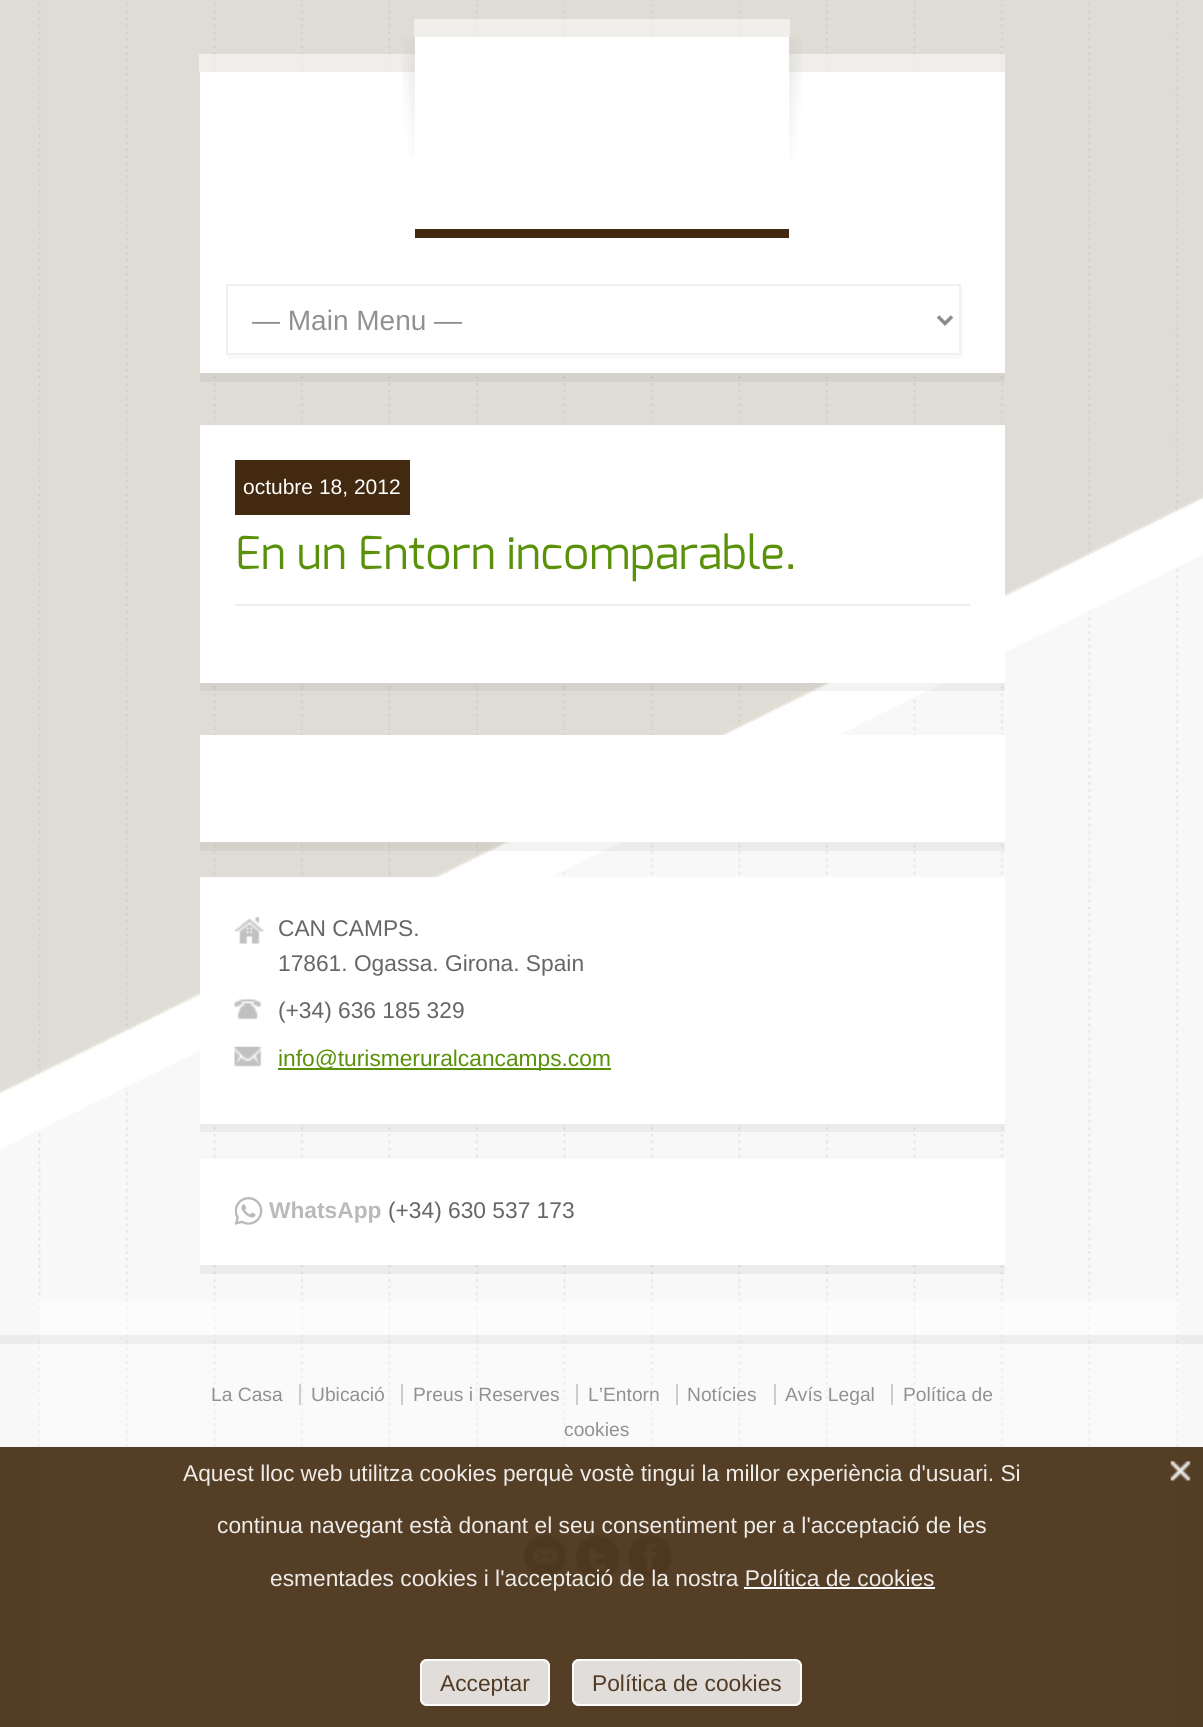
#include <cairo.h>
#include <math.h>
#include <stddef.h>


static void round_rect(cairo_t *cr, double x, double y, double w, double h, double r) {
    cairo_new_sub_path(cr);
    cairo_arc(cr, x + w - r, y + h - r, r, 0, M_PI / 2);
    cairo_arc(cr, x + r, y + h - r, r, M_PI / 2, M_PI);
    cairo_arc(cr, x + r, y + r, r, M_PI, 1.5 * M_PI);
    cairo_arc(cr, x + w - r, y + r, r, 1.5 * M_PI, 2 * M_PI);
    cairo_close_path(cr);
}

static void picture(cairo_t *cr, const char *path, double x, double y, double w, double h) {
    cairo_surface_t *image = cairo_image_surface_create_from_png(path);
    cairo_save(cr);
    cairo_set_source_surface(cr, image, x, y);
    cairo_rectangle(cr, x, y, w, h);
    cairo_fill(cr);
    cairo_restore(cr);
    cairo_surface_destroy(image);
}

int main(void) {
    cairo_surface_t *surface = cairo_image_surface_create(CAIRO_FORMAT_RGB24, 1203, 1727);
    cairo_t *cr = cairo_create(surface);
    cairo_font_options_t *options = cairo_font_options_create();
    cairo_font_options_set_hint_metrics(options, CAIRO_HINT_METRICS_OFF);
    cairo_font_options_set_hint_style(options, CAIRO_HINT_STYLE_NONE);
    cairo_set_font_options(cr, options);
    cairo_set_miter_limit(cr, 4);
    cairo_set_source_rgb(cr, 1, 1, 1);
    cairo_paint(cr);
    picture(cr, "img1.png", 0, 0, 1203, 1727);
    picture(cr, "img2.png", 0, 0, 1203, 1149);
    cairo_set_source_rgba(cr, 1, 1, 1, 0.5);
    cairo_rectangle(cr, 199, 54, 806, 18);
    cairo_fill(cr);
    cairo_set_source_rgba(cr, 0, 0, 0, 0.05);
    cairo_new_path(cr);
    cairo_move_to(cr, 200, 373);
    cairo_line_to(cr, 200, 382);
    cairo_line_to(cr, 1005, 382);
    cairo_line_to(cr, 1005, 81);
    cairo_line_to(cr, 1004, 81);
    cairo_line_to(cr, 1004, 373);
    cairo_close_path(cr);
    cairo_fill(cr);
    cairo_set_source_rgb(cr, 1, 1, 1);
    cairo_rectangle(cr, 200, 72, 805, 301);
    cairo_fill(cr);
    picture(cr, "img3.png", 402, 36, 13, 121);
    cairo_set_source_rgb(cr, 0.263, 0.161, 0.059);
    cairo_rectangle(cr, 415, 229, 374, 9);
    cairo_fill(cr);
    cairo_set_source_rgba(cr, 1, 1, 1, 0.5);
    cairo_rectangle(cr, 414, 19, 376, 18);
    cairo_fill(cr);
    cairo_set_source_rgb(cr, 1, 1, 1);
    cairo_rectangle(cr, 415, 37, 374, 35);
    cairo_fill(cr);
    picture(cr, "img4.png", 789, 37, 13, 122);
    cairo_set_source_rgb(cr, 0.976, 0.976, 0.976);
    cairo_new_path(cr);
    cairo_move_to(cr, 228, 355);
    cairo_line_to(cr, 228, 359);
    cairo_line_to(cr, 963, 359);
    cairo_line_to(cr, 963, 287);
    cairo_line_to(cr, 961, 287);
    cairo_line_to(cr, 961, 355);
    cairo_close_path(cr);
    cairo_fill(cr);
    cairo_rectangle(cr, 227, 285, 733, 69);
    cairo_set_source_rgb(cr, 0.941, 0.941, 0.941);
    cairo_stroke(cr);
    cairo_new_path(cr);
    cairo_move_to(cr, 938, 316.5);
    cairo_line_to(cr, 945, 323.5);
    cairo_line_to(cr, 952, 316.5);
    cairo_set_source_rgb(cr, 0.549, 0.549, 0.549);
    cairo_set_line_width(cr, 3.5);
    cairo_stroke(cr);
    cairo_select_font_face(cr, "Liberation Sans", CAIRO_FONT_SLANT_NORMAL, CAIRO_FONT_WEIGHT_NORMAL);
    cairo_set_font_size(cr, 28);
    cairo_set_source_rgb(cr, 0.569, 0.569, 0.569);
    cairo_move_to(cr, 252, 330);
    cairo_show_text(cr, "— Main Menu —");
    cairo_set_source_rgba(cr, 0, 0, 0, 0.05);
    cairo_new_path(cr);
    cairo_move_to(cr, 200, 682);
    cairo_line_to(cr, 200, 691);
    cairo_line_to(cr, 1005, 691);
    cairo_line_to(cr, 1005, 434);
    cairo_line_to(cr, 1004, 434);
    cairo_line_to(cr, 1004, 682);
    cairo_close_path(cr);
    cairo_fill(cr);
    cairo_set_source_rgb(cr, 1, 1, 1);
    cairo_rectangle(cr, 200, 425, 805, 258);
    cairo_fill(cr);
    cairo_set_source_rgb(cr, 0.263, 0.161, 0.059);
    cairo_rectangle(cr, 235, 460, 175, 55);
    cairo_fill(cr);
    cairo_set_font_size(cr, 21);
    cairo_set_source_rgb(cr, 1, 1, 1);
    cairo_move_to(cr, 243, 494);
    cairo_show_text(cr, "octubre 18, 2012");
    cairo_select_font_face(cr, "Exo", CAIRO_FONT_SLANT_NORMAL, CAIRO_FONT_WEIGHT_NORMAL);
    cairo_set_font_size(cr, 45.5);
    cairo_set_source_rgb(cr, 0.349, 0.569, 0.039);
    cairo_move_to(cr, 235, 569);
    cairo_show_text(cr, "En un Entorn incomparable.");
    cairo_set_source_rgb(cr, 0.933, 0.933, 0.933);
    cairo_rectangle(cr, 235, 604, 735, 2);
    cairo_fill(cr);
    cairo_set_source_rgba(cr, 0, 0, 0, 0.05);
    cairo_new_path(cr);
    cairo_move_to(cr, 200, 842);
    cairo_line_to(cr, 200, 851);
    cairo_line_to(cr, 1005, 851);
    cairo_line_to(cr, 1005, 744);
    cairo_line_to(cr, 1004, 744);
    cairo_line_to(cr, 1004, 842);
    cairo_close_path(cr);
    cairo_fill(cr);
    cairo_set_source_rgb(cr, 1, 1, 1);
    cairo_rectangle(cr, 200, 735, 805, 107);
    cairo_fill(cr);
    cairo_set_source_rgba(cr, 0, 0, 0, 0.05);
    cairo_new_path(cr);
    cairo_move_to(cr, 200, 1124);
    cairo_line_to(cr, 200, 1132);
    cairo_line_to(cr, 1005, 1132);
    cairo_line_to(cr, 1005, 886);
    cairo_line_to(cr, 1004, 886);
    cairo_line_to(cr, 1004, 1124);
    cairo_close_path(cr);
    cairo_fill(cr);
    cairo_set_source_rgb(cr, 1, 1, 1);
    cairo_rectangle(cr, 200, 877, 805, 247);
    cairo_fill(cr);
    picture(cr, "img5.png", 234, 917, 31, 27);
    cairo_select_font_face(cr, "Liberation Sans", CAIRO_FONT_SLANT_NORMAL, CAIRO_FONT_WEIGHT_NORMAL);
    cairo_set_font_size(cr, 22.75);
    cairo_set_source_rgb(cr, 0.4, 0.4, 0.4);
    cairo_move_to(cr, 278, 936);
    cairo_show_text(cr, "CAN CAMPS.");
    cairo_move_to(cr, 278, 971);
    cairo_show_text(cr, "17861. Ogassa. Girona. Spain");
    picture(cr, "img6.png", 234, 999, 28, 21);
    cairo_move_to(cr, 278, 1018);
    cairo_show_text(cr, "(+34) 636 185 329");
    picture(cr, "img7.png", 234, 1046, 28, 21);
    cairo_set_source_rgb(cr, 0.349, 0.569, 0.039);
    cairo_rectangle(cr, 278, 1068, 333, 2);
    cairo_fill(cr);
    cairo_move_to(cr, 278, 1066);
    cairo_show_text(cr, "info@turismeruralcancamps.com");
    cairo_set_source_rgba(cr, 0, 0, 0, 0.05);
    cairo_new_path(cr);
    cairo_move_to(cr, 200, 1265);
    cairo_line_to(cr, 200, 1274);
    cairo_line_to(cr, 1005, 1274);
    cairo_line_to(cr, 1005, 1167);
    cairo_line_to(cr, 1004, 1167);
    cairo_line_to(cr, 1004, 1265);
    cairo_close_path(cr);
    cairo_fill(cr);
    cairo_set_source_rgb(cr, 1, 1, 1);
    cairo_rectangle(cr, 200, 1159, 805, 106);
    cairo_fill(cr);
    picture(cr, "img8.png", 235, 1197, 28, 28);
    cairo_select_font_face(cr, "Liberation Sans", CAIRO_FONT_SLANT_NORMAL, CAIRO_FONT_WEIGHT_BOLD);
    cairo_set_source_rgb(cr, 0.729, 0.729, 0.729);
    cairo_move_to(cr, 269, 1218);
    cairo_show_text(cr, "WhatsApp");
    cairo_select_font_face(cr, "Liberation Sans", CAIRO_FONT_SLANT_NORMAL, CAIRO_FONT_WEIGHT_NORMAL);
    cairo_set_source_rgb(cr, 0.4, 0.4, 0.4);
    cairo_move_to(cr, 388, 1218);
    cairo_show_text(cr, "(+34) 630 537 173");
    cairo_set_source_rgba(cr, 1, 1, 1, 0.5);
    cairo_rectangle(cr, 38, 1300, 1141, 36);
    cairo_fill(cr);
    cairo_set_source_rgba(cr, 1, 1, 1, 0.3);
    cairo_rectangle(cr, 38, 1335, 1141, 392);
    cairo_fill(cr);
    cairo_set_source_rgba(cr, 0, 0, 0, 0.05);
    cairo_rectangle(cr, 0, 1335, 1203, 9);
    cairo_fill(cr);
    cairo_set_font_size(cr, 19.25);
    cairo_set_source_rgb(cr, 0.569, 0.569, 0.569);
    cairo_move_to(cr, 211, 1401);
    cairo_show_text(cr, "La Casa");
    cairo_move_to(cr, 311, 1401);
    cairo_show_text(cr, "Ubicació");
    cairo_set_source_rgb(cr, 0.804, 0.804, 0.804);
    cairo_rectangle(cr, 299, 1384, 2, 21);
    cairo_fill(cr);
    cairo_set_source_rgb(cr, 0.569, 0.569, 0.569);
    cairo_move_to(cr, 413, 1401);
    cairo_show_text(cr, "Preus i Reserves");
    cairo_set_source_rgb(cr, 0.804, 0.804, 0.804);
    cairo_rectangle(cr, 401, 1384, 2, 21);
    cairo_fill(cr);
    cairo_set_source_rgb(cr, 0.569, 0.569, 0.569);
    cairo_move_to(cr, 588, 1401);
    cairo_show_text(cr, "L’Entorn");
    cairo_set_source_rgb(cr, 0.804, 0.804, 0.804);
    cairo_rectangle(cr, 576, 1384, 2, 21);
    cairo_fill(cr);
    cairo_set_source_rgb(cr, 0.569, 0.569, 0.569);
    cairo_move_to(cr, 687, 1401);
    cairo_show_text(cr, "Notícies");
    cairo_set_source_rgb(cr, 0.804, 0.804, 0.804);
    cairo_rectangle(cr, 676, 1384, 2, 21);
    cairo_fill(cr);
    cairo_set_source_rgb(cr, 0.569, 0.569, 0.569);
    cairo_move_to(cr, 785, 1401);
    cairo_show_text(cr, "Avís Legal");
    cairo_set_source_rgb(cr, 0.804, 0.804, 0.804);
    cairo_rectangle(cr, 774, 1384, 2, 21);
    cairo_fill(cr);
    cairo_set_source_rgb(cr, 0.569, 0.569, 0.569);
    cairo_move_to(cr, 903, 1401);
    cairo_show_text(cr, "Política de");
    cairo_set_source_rgb(cr, 0.804, 0.804, 0.804);
    cairo_rectangle(cr, 891, 1384, 2, 21);
    cairo_fill(cr);
    cairo_set_source_rgb(cr, 0.569, 0.569, 0.569);
    cairo_move_to(cr, 564, 1436);
    cairo_show_text(cr, "cookies");
    picture(cr, "img9.png", 523, 1535, 44, 42);
    picture(cr, "img10.png", 575, 1535, 45, 46);
    picture(cr, "img11.png", 628, 1535, 44, 44);
    cairo_set_source_rgba(cr, 0.263, 0.161, 0.059, 0.9);
    cairo_rectangle(cr, 0, 1447, 1203, 280);
    cairo_fill(cr);
    cairo_set_font_size(cr, 22.75);
    cairo_set_source_rgb(cr, 0.933, 0.925, 0.914);
    cairo_move_to(cr, 183, 1481);
    cairo_show_text(cr, "Aquest lloc web utilitza cookies perquè vostè tingui la millor experiència d'usuari. Si");
    cairo_move_to(cr, 217, 1533);
    cairo_show_text(cr, "continua navegant està donant el seu consentiment per a l'acceptació de les");
    cairo_move_to(cr, 270, 1586);
    cairo_show_text(cr, "esmentades cookies i l'acceptació de la nostra Política de cookies");
    cairo_set_source_rgb(cr, 1, 1, 1);
    cairo_rectangle(cr, 744, 1587, 191, 2);
    cairo_fill(cr);
    picture(cr, "img12.png", 1170, 1461, 21, 21);
    cairo_set_source_rgb(cr, 0.878, 0.867, 0.859);
    round_rect(cr, 420, 1659, 130, 47, 7);
    cairo_fill(cr);
    round_rect(cr, 421, 1660, 128, 45, 6);
    cairo_set_source_rgba(cr, 1, 1, 1, 0.9);
    cairo_set_line_width(cr, 2);
    cairo_stroke(cr);
    cairo_set_source_rgb(cr, 0.325, 0.231, 0.137);
    cairo_move_to(cr, 440, 1691);
    cairo_show_text(cr, "Acceptar");
    cairo_set_source_rgb(cr, 0.878, 0.867, 0.859);
    round_rect(cr, 572, 1659, 230, 47, 7);
    cairo_fill(cr);
    round_rect(cr, 573, 1660, 228, 45, 6);
    cairo_set_source_rgba(cr, 1, 1, 1, 0.9);
    cairo_stroke(cr);
    cairo_set_source_rgb(cr, 0.325, 0.231, 0.137);
    cairo_move_to(cr, 592, 1691);
    cairo_show_text(cr, "Política de cookies");
    cairo_surface_write_to_png(surface, "page.png");
    cairo_font_options_destroy(options);
    cairo_destroy(cr);
    cairo_surface_destroy(surface);
    return 0;
}
